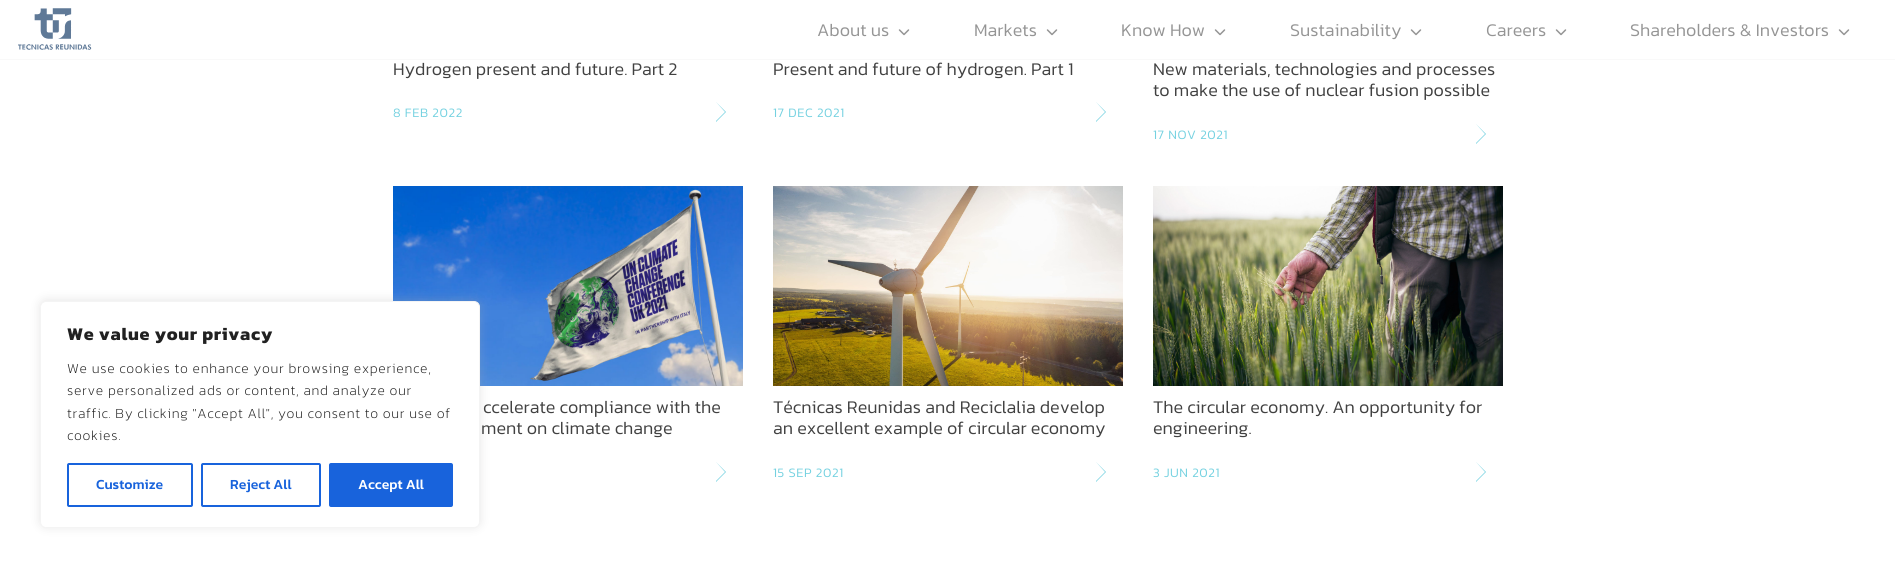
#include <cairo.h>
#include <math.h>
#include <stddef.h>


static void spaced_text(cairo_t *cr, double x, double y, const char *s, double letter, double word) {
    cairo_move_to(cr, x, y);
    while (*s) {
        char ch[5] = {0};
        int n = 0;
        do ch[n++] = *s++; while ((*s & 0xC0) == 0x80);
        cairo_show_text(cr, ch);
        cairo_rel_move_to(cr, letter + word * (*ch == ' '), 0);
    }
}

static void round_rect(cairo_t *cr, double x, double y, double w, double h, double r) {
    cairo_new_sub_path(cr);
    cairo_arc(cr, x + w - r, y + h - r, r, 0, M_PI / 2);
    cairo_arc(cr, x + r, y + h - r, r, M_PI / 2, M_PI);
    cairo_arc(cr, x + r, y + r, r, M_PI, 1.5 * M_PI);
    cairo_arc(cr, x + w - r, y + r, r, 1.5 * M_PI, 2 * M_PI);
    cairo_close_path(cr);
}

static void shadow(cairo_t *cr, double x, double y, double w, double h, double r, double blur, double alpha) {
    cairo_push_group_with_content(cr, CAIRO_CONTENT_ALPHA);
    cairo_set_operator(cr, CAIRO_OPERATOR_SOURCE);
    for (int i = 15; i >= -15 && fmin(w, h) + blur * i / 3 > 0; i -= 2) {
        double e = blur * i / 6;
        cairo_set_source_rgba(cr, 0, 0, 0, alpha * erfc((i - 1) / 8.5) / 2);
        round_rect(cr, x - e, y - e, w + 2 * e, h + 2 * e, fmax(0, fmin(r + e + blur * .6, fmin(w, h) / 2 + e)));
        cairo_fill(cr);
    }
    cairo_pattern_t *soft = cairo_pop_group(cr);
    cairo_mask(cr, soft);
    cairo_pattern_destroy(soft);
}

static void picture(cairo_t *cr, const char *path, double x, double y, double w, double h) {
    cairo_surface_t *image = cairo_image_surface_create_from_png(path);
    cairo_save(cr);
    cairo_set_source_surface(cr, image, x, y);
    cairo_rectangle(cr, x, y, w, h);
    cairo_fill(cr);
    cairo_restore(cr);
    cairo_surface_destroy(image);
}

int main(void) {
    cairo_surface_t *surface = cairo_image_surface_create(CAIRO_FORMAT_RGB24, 1895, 568);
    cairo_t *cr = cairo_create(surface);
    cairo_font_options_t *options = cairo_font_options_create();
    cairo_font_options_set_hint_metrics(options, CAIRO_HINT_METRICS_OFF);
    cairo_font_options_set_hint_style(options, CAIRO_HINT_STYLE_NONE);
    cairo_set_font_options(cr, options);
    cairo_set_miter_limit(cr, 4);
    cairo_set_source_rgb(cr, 1, 1, 1);
    cairo_paint(cr);
    picture(cr, "img3.png", 393, 186, 350, 200);
    cairo_set_source_rgb(cr, 0.675, 0.671, 0.671);
    shadow(cr, 40, 300, 440, 227, 6, 5, 0.3);
    cairo_set_source_rgb(cr, 1, 1, 1);
    round_rect(cr, 40.5, 301.5, 439, 226, 5.5);
    cairo_fill_preserve(cr);
    cairo_set_source_rgb(cr, 0.957, 0.957, 0.957);
    cairo_set_line_width(cr, 1);
    cairo_stroke(cr);
    cairo_select_font_face(cr, "Kanit", CAIRO_FONT_SLANT_NORMAL, CAIRO_FONT_WEIGHT_BOLD);
    cairo_set_font_size(cr, 18);
    cairo_set_source_rgb(cr, 0.129, 0.129, 0.129);
    spaced_text(cr, 67, 340, "We value your privacy", 0.68, 0);
    cairo_select_font_face(cr, "Kanit ExtraLight", CAIRO_FONT_SLANT_NORMAL, CAIRO_FONT_WEIGHT_NORMAL);
    cairo_set_font_size(cr, 14);
    spaced_text(cr, 67, 373, "We use cookies to enhance your browsing experience,", 0.68, 0);
    spaced_text(cr, 67, 395, "serve personalized ads or content, and analyze our", 0.68, 0);
    spaced_text(cr, 67, 418, "traffic. By clicking \"Accept All\", you consent to our use of", 0.68, 0);
    spaced_text(cr, 67, 440, "cookies.", 0.68, 0);
    round_rect(cr, 68, 464, 124, 42, 1);
    cairo_set_source_rgb(cr, 0.094, 0.388, 0.863);
    cairo_set_line_width(cr, 2);
    cairo_stroke(cr);
    cairo_select_font_face(cr, "Kanit Medium", CAIRO_FONT_SLANT_NORMAL, CAIRO_FONT_WEIGHT_NORMAL);
    cairo_move_to(cr, 96, 489);
    cairo_show_text(cr, "Customize");
    round_rect(cr, 202, 464, 118, 42, 1);
    cairo_stroke(cr);
    cairo_move_to(cr, 230, 489);
    cairo_show_text(cr, "Reject All");
    round_rect(cr, 330, 464, 122, 42, 1);
    cairo_fill_preserve(cr);
    cairo_stroke(cr);
    cairo_set_source_rgb(cr, 1, 1, 1);
    cairo_move_to(cr, 358, 489);
    cairo_show_text(cr, "Accept All");
    cairo_set_source_rgb(cr, 0.976, 0.976, 0.976);
    cairo_rectangle(cr, 0, 59, 1895, 1);
    cairo_fill(cr);
    picture(cr, "img1.png", 18, 8, 74, 42);
    cairo_select_font_face(cr, "Kanit Light", CAIRO_FONT_SLANT_NORMAL, CAIRO_FONT_WEIGHT_NORMAL);
    cairo_set_font_size(cr, 18);
    cairo_set_source_rgb(cr, 0.584, 0.584, 0.584);
    cairo_move_to(cr, 817, 36);
    cairo_show_text(cr, "About us");
    picture(cr, "img2.png", 898, 29, 12, 7);
    cairo_move_to(cr, 974, 36);
    cairo_show_text(cr, "Markets");
    picture(cr, "img2.png", 1046, 29, 12, 7);
    cairo_move_to(cr, 1121, 36);
    cairo_show_text(cr, "Know How");
    picture(cr, "img2.png", 1214, 29, 12, 7);
    cairo_move_to(cr, 1290, 36);
    cairo_show_text(cr, "Sustainability");
    picture(cr, "img2.png", 1410, 29, 12, 7);
    cairo_move_to(cr, 1486, 36);
    cairo_show_text(cr, "Careers");
    picture(cr, "img2.png", 1555, 29, 12, 7);
    cairo_move_to(cr, 1630, 36);
    cairo_show_text(cr, "Shareholders & Investors");
    picture(cr, "img2.png", 1838, 29, 12, 7);
    cairo_set_source_rgb(cr, 0.255, 0.255, 0.255);
    cairo_move_to(cr, 393, 75);
    cairo_show_text(cr, "Hydrogen present and future. Part 2");
    cairo_set_font_size(cr, 13);
    cairo_set_source_rgb(cr, 0.455, 0.82, 0.878);
    spaced_text(cr, 393, 117, "8 FEB 2022", 0.6, 0);
    cairo_new_path(cr);
    cairo_move_to(cr, 726, 112);
    cairo_line_to(cr, 716, 102);
    cairo_line_to(cr, 725, 112);
    cairo_line_to(cr, 685, 112);
    cairo_line_to(cr, 725, 112);
    cairo_line_to(cr, 716, 121);
    cairo_line_to(cr, 716, 122);
    cairo_close_path(cr);
    cairo_fill(cr);
    cairo_set_font_size(cr, 18);
    cairo_set_source_rgb(cr, 0.255, 0.255, 0.255);
    cairo_move_to(cr, 773, 75);
    cairo_show_text(cr, "Present and future of hydrogen. Part 1");
    cairo_set_font_size(cr, 13);
    cairo_set_source_rgb(cr, 0.455, 0.82, 0.878);
    spaced_text(cr, 773, 117, "17 DEC 2021", 0.6, 0);
    cairo_new_path(cr);
    cairo_move_to(cr, 1106, 112);
    cairo_line_to(cr, 1096, 102);
    cairo_line_to(cr, 1105, 112);
    cairo_line_to(cr, 1065, 112);
    cairo_line_to(cr, 1105, 112);
    cairo_line_to(cr, 1096, 121);
    cairo_line_to(cr, 1096, 122);
    cairo_close_path(cr);
    cairo_fill(cr);
    cairo_set_font_size(cr, 18);
    cairo_set_source_rgb(cr, 0.255, 0.255, 0.255);
    cairo_move_to(cr, 1153, 75);
    cairo_show_text(cr, "New materials, technologies and processes");
    cairo_move_to(cr, 1153, 96);
    cairo_show_text(cr, "to make the use of nuclear fusion possible");
    cairo_set_font_size(cr, 13);
    cairo_set_source_rgb(cr, 0.455, 0.82, 0.878);
    spaced_text(cr, 1153, 139, "17 NOV 2021", 0.6, 0);
    cairo_new_path(cr);
    cairo_move_to(cr, 1486, 134);
    cairo_line_to(cr, 1476, 124);
    cairo_line_to(cr, 1485, 134);
    cairo_line_to(cr, 1445, 134);
    cairo_line_to(cr, 1485, 134);
    cairo_line_to(cr, 1476, 143);
    cairo_line_to(cr, 1476, 144);
    cairo_close_path(cr);
    cairo_fill(cr);
    cairo_set_font_size(cr, 18);
    cairo_set_source_rgb(cr, 0.255, 0.255, 0.255);
    cairo_move_to(cr, 483, 413);
    cairo_show_text(cr, "ccelerate compliance with the");
    cairo_move_to(cr, 481, 434);
    cairo_show_text(cr, "ment on climate change");
    cairo_set_source_rgb(cr, 0.455, 0.82, 0.878);
    cairo_new_path(cr);
    cairo_move_to(cr, 726, 472);
    cairo_line_to(cr, 716, 462);
    cairo_line_to(cr, 725, 472);
    cairo_line_to(cr, 685, 472);
    cairo_line_to(cr, 725, 472);
    cairo_line_to(cr, 716, 481);
    cairo_line_to(cr, 716, 482);
    cairo_close_path(cr);
    cairo_fill(cr);
    picture(cr, "img4.png", 773, 186, 350, 200);
    cairo_set_source_rgb(cr, 0.255, 0.255, 0.255);
    cairo_move_to(cr, 773, 413);
    cairo_show_text(cr, "Técnicas Reunidas and Reciclalia develop");
    cairo_move_to(cr, 773, 434);
    cairo_show_text(cr, "an excellent example of circular economy");
    cairo_set_font_size(cr, 13);
    cairo_set_source_rgb(cr, 0.455, 0.82, 0.878);
    spaced_text(cr, 773, 477, "15 SEP 2021", 0.6, 0);
    cairo_new_path(cr);
    cairo_move_to(cr, 1106, 472);
    cairo_line_to(cr, 1096, 462);
    cairo_line_to(cr, 1105, 472);
    cairo_line_to(cr, 1065, 472);
    cairo_line_to(cr, 1105, 472);
    cairo_line_to(cr, 1096, 481);
    cairo_line_to(cr, 1096, 482);
    cairo_close_path(cr);
    cairo_fill(cr);
    picture(cr, "img5.png", 1153, 186, 350, 200);
    cairo_set_font_size(cr, 18);
    cairo_set_source_rgb(cr, 0.255, 0.255, 0.255);
    cairo_move_to(cr, 1153, 413);
    cairo_show_text(cr, "The circular economy. An opportunity for");
    cairo_move_to(cr, 1153, 434);
    cairo_show_text(cr, "engineering.");
    cairo_set_font_size(cr, 13);
    cairo_set_source_rgb(cr, 0.455, 0.82, 0.878);
    spaced_text(cr, 1153, 477, "3 JUN 2021", 0.6, 0);
    cairo_new_path(cr);
    cairo_move_to(cr, 1486, 472);
    cairo_line_to(cr, 1476, 462);
    cairo_line_to(cr, 1485, 472);
    cairo_line_to(cr, 1445, 472);
    cairo_line_to(cr, 1485, 472);
    cairo_line_to(cr, 1476, 481);
    cairo_line_to(cr, 1476, 482);
    cairo_close_path(cr);
    cairo_fill(cr);
    cairo_surface_write_to_png(surface, "page.png");
    cairo_font_options_destroy(options);
    cairo_destroy(cr);
    cairo_surface_destroy(surface);
    return 0;
}
